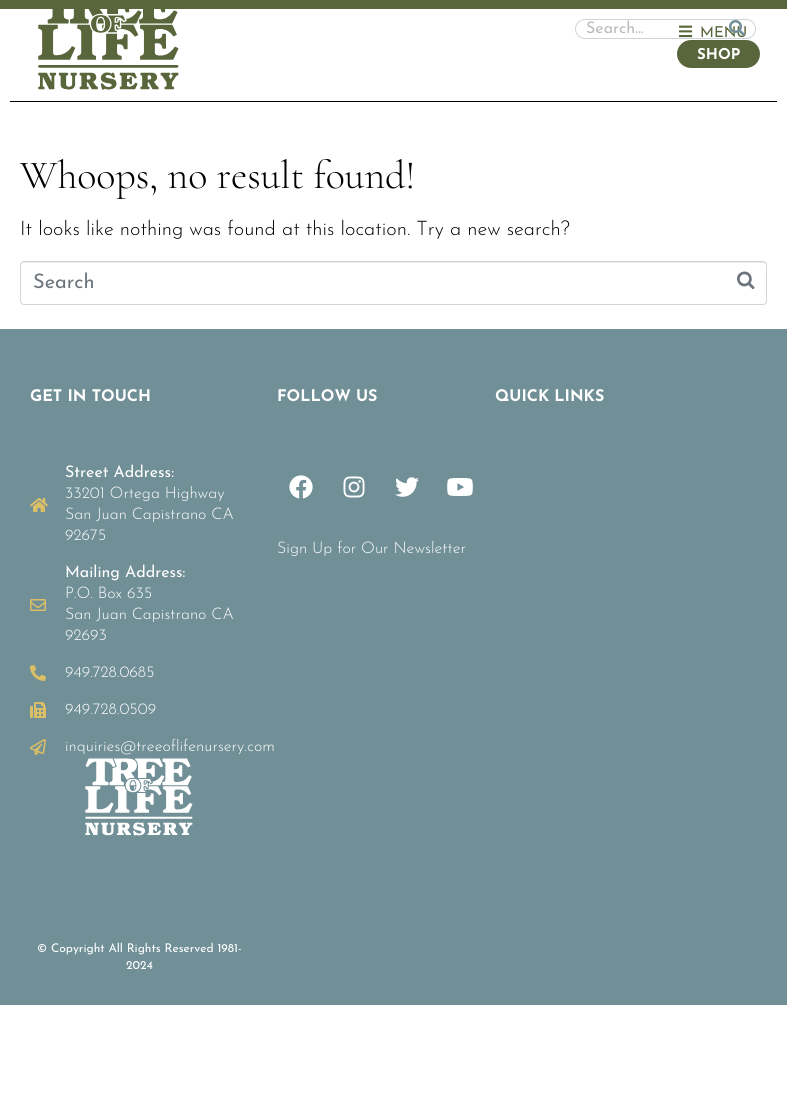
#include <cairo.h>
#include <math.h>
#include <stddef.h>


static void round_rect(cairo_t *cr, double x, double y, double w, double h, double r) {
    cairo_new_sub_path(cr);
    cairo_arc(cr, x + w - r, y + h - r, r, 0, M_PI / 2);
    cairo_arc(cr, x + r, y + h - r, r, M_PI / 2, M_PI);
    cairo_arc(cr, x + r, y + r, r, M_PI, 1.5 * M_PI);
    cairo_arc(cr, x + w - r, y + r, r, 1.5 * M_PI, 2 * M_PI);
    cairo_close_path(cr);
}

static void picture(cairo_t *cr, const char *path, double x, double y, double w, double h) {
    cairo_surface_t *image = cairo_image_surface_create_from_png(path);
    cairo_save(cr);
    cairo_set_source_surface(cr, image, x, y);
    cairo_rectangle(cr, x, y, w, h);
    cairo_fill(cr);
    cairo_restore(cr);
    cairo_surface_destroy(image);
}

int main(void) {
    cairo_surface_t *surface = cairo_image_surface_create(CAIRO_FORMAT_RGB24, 787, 1105);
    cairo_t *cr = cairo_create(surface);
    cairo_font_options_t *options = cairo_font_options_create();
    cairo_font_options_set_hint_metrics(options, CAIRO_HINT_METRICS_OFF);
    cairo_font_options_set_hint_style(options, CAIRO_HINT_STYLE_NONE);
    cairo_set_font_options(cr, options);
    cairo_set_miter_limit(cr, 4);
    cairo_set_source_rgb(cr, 1, 1, 1);
    cairo_paint(cr);
    cairo_set_source_rgb(cr, 0.349, 0.4, 0.231);
    cairo_rectangle(cr, 0, 0, 787, 9);
    cairo_fill(cr);
    picture(cr, "img3.png", 679, 25, 14, 13);
    round_rect(cr, 575.5, 19.5, 180, 19, 9.5);
    cairo_set_source_rgb(cr, 0.808, 0.831, 0.855);
    cairo_set_line_width(cr, 1);
    cairo_stroke(cr);
    cairo_select_font_face(cr, "Josefin Sans", CAIRO_FONT_SLANT_NORMAL, CAIRO_FONT_WEIGHT_NORMAL);
    cairo_set_font_size(cr, 16);
    cairo_set_source_rgb(cr, 0.725, 0.733, 0.725);
    cairo_move_to(cr, 586, 33);
    cairo_show_text(cr, "Search...");
    cairo_set_font_size(cr, 15);
    cairo_set_source_rgb(cr, 0.349, 0.4, 0.231);
    cairo_move_to(cr, 700, 37);
    cairo_show_text(cr, "MENU");
    picture(cr, "img1.png", 729, 20, 16, 16);
    round_rect(cr, 677, 40, 83, 28, 14);
    cairo_fill(cr);
    cairo_select_font_face(cr, "Josefin Sans", CAIRO_FONT_SLANT_NORMAL, CAIRO_FONT_WEIGHT_BOLD);
    cairo_set_source_rgb(cr, 1, 1, 1);
    cairo_move_to(cr, 697, 59);
    cairo_show_text(cr, "SHOP");
    picture(cr, "img2.png", 38, 9, 141, 81);
    cairo_set_source_rgb(cr, 0, 0, 0);
    cairo_rectangle(cr, 10, 101, 767, 1);
    cairo_fill(cr);
    cairo_select_font_face(cr, "Cormorant Light", CAIRO_FONT_SLANT_NORMAL, CAIRO_FONT_WEIGHT_NORMAL);
    cairo_set_font_size(cr, 40);
    cairo_move_to(cr, 20, 188);
    cairo_show_text(cr, "Whoops, no result found!");
    cairo_select_font_face(cr, "Josefin Sans Light", CAIRO_FONT_SLANT_NORMAL, CAIRO_FONT_WEIGHT_NORMAL);
    cairo_set_font_size(cr, 20);
    cairo_move_to(cr, 20, 235);
    cairo_show_text(cr, "It looks like nothing was found at this location. Try a new search?");
    cairo_set_source_rgb(cr, 0.925, 0.925, 0.925);
    cairo_new_path(cr);
    cairo_move_to(cr, 24, 263);
    cairo_line_to(cr, 763, 263);
    cairo_curve_to(cr, 765, 263, 766, 264, 766, 266);
    cairo_curve_to(cr, 766, 264, 765, 262, 763, 262);
    cairo_line_to(cr, 24, 262);
    cairo_curve_to(cr, 22, 262, 21, 264, 21, 266);
    cairo_curve_to(cr, 21, 264, 22, 263, 24, 263);
    cairo_close_path(cr);
    cairo_fill(cr);
    round_rect(cr, 20.5, 261.5, 746, 43, 3.5);
    cairo_set_source_rgb(cr, 0.808, 0.831, 0.855);
    cairo_stroke(cr);
    cairo_select_font_face(cr, "Josefin Sans", CAIRO_FONT_SLANT_NORMAL, CAIRO_FONT_WEIGHT_NORMAL);
    cairo_set_source_rgb(cr, 0.424, 0.459, 0.49);
    cairo_move_to(cr, 33, 288);
    cairo_show_text(cr, "Search");
    picture(cr, "img4.png", 737, 271, 18, 19);
    cairo_set_source_rgb(cr, 0.439, 0.561, 0.588);
    cairo_rectangle(cr, 0, 329, 787, 676);
    cairo_fill(cr);
    cairo_select_font_face(cr, "Josefin Sans", CAIRO_FONT_SLANT_NORMAL, CAIRO_FONT_WEIGHT_BOLD);
    cairo_set_font_size(cr, 16);
    cairo_set_source_rgb(cr, 1, 1, 1);
    cairo_move_to(cr, 30, 401);
    cairo_show_text(cr, "GET IN TOUCH");
    picture(cr, "img5.png", 30, 498, 18, 14);
    cairo_select_font_face(cr, "Josefin Sans", CAIRO_FONT_SLANT_NORMAL, CAIRO_FONT_WEIGHT_NORMAL);
    cairo_move_to(cr, 65, 477);
    cairo_show_text(cr, "Street Address:");
    cairo_select_font_face(cr, "Josefin Sans Light", CAIRO_FONT_SLANT_NORMAL, CAIRO_FONT_WEIGHT_NORMAL);
    cairo_move_to(cr, 65, 498);
    cairo_show_text(cr, "33201 Ortega Highway");
    cairo_move_to(cr, 65, 519);
    cairo_show_text(cr, "San Juan Capistrano CA");
    cairo_move_to(cr, 65, 540);
    cairo_show_text(cr, "92675");
    picture(cr, "img6.png", 30, 599, 16, 12);
    cairo_select_font_face(cr, "Josefin Sans", CAIRO_FONT_SLANT_NORMAL, CAIRO_FONT_WEIGHT_NORMAL);
    cairo_move_to(cr, 65, 577);
    cairo_show_text(cr, "Mailing Address:");
    cairo_select_font_face(cr, "Josefin Sans Light", CAIRO_FONT_SLANT_NORMAL, CAIRO_FONT_WEIGHT_NORMAL);
    cairo_move_to(cr, 65, 598);
    cairo_show_text(cr, "P.O. Box 635");
    cairo_move_to(cr, 65, 619);
    cairo_show_text(cr, "San Juan Capistrano CA");
    cairo_move_to(cr, 65, 640);
    cairo_show_text(cr, "92693");
    picture(cr, "img7.png", 30, 665, 16, 16);
    cairo_move_to(cr, 65, 677);
    cairo_show_text(cr, "949.728.0685");
    picture(cr, "img8.png", 30, 702, 16, 16);
    cairo_move_to(cr, 65, 714);
    cairo_show_text(cr, "949.728.0509");
    picture(cr, "img9.png", 30, 739, 16, 16);
    cairo_move_to(cr, 65, 751);
    cairo_show_text(cr, "inquiries@treeoflifenursery.com");
    cairo_select_font_face(cr, "Josefin Sans", CAIRO_FONT_SLANT_NORMAL, CAIRO_FONT_WEIGHT_BOLD);
    cairo_move_to(cr, 277, 401);
    cairo_show_text(cr, "FOLLOW US");
    picture(cr, "img10.png", 289, 475, 24, 24);
    picture(cr, "img11.png", 343, 476, 22, 22);
    picture(cr, "img12.png", 395, 477, 24, 20);
    picture(cr, "img13.png", 447, 478, 26, 18);
    cairo_select_font_face(cr, "Josefin Sans Light", CAIRO_FONT_SLANT_NORMAL, CAIRO_FONT_WEIGHT_NORMAL);
    cairo_move_to(cr, 277, 553);
    cairo_show_text(cr, "Sign Up for Our Newsletter");
    cairo_select_font_face(cr, "Josefin Sans", CAIRO_FONT_SLANT_NORMAL, CAIRO_FONT_WEIGHT_BOLD);
    cairo_move_to(cr, 495, 401);
    cairo_show_text(cr, "QUICK LINKS");
    picture(cr, "img14.png", 85, 758, 108, 78);
    cairo_select_font_face(cr, "Josefin Sans", CAIRO_FONT_SLANT_NORMAL, CAIRO_FONT_WEIGHT_NORMAL);
    cairo_set_font_size(cr, 12);
    cairo_move_to(cr, 37, 952);
    cairo_show_text(cr, "© Copyright All Rights Reserved 1981-");
    cairo_move_to(cr, 126, 969);
    cairo_show_text(cr, "2024");
    cairo_surface_write_to_png(surface, "page.png");
    cairo_font_options_destroy(options);
    cairo_destroy(cr);
    cairo_surface_destroy(surface);
    return 0;
}
